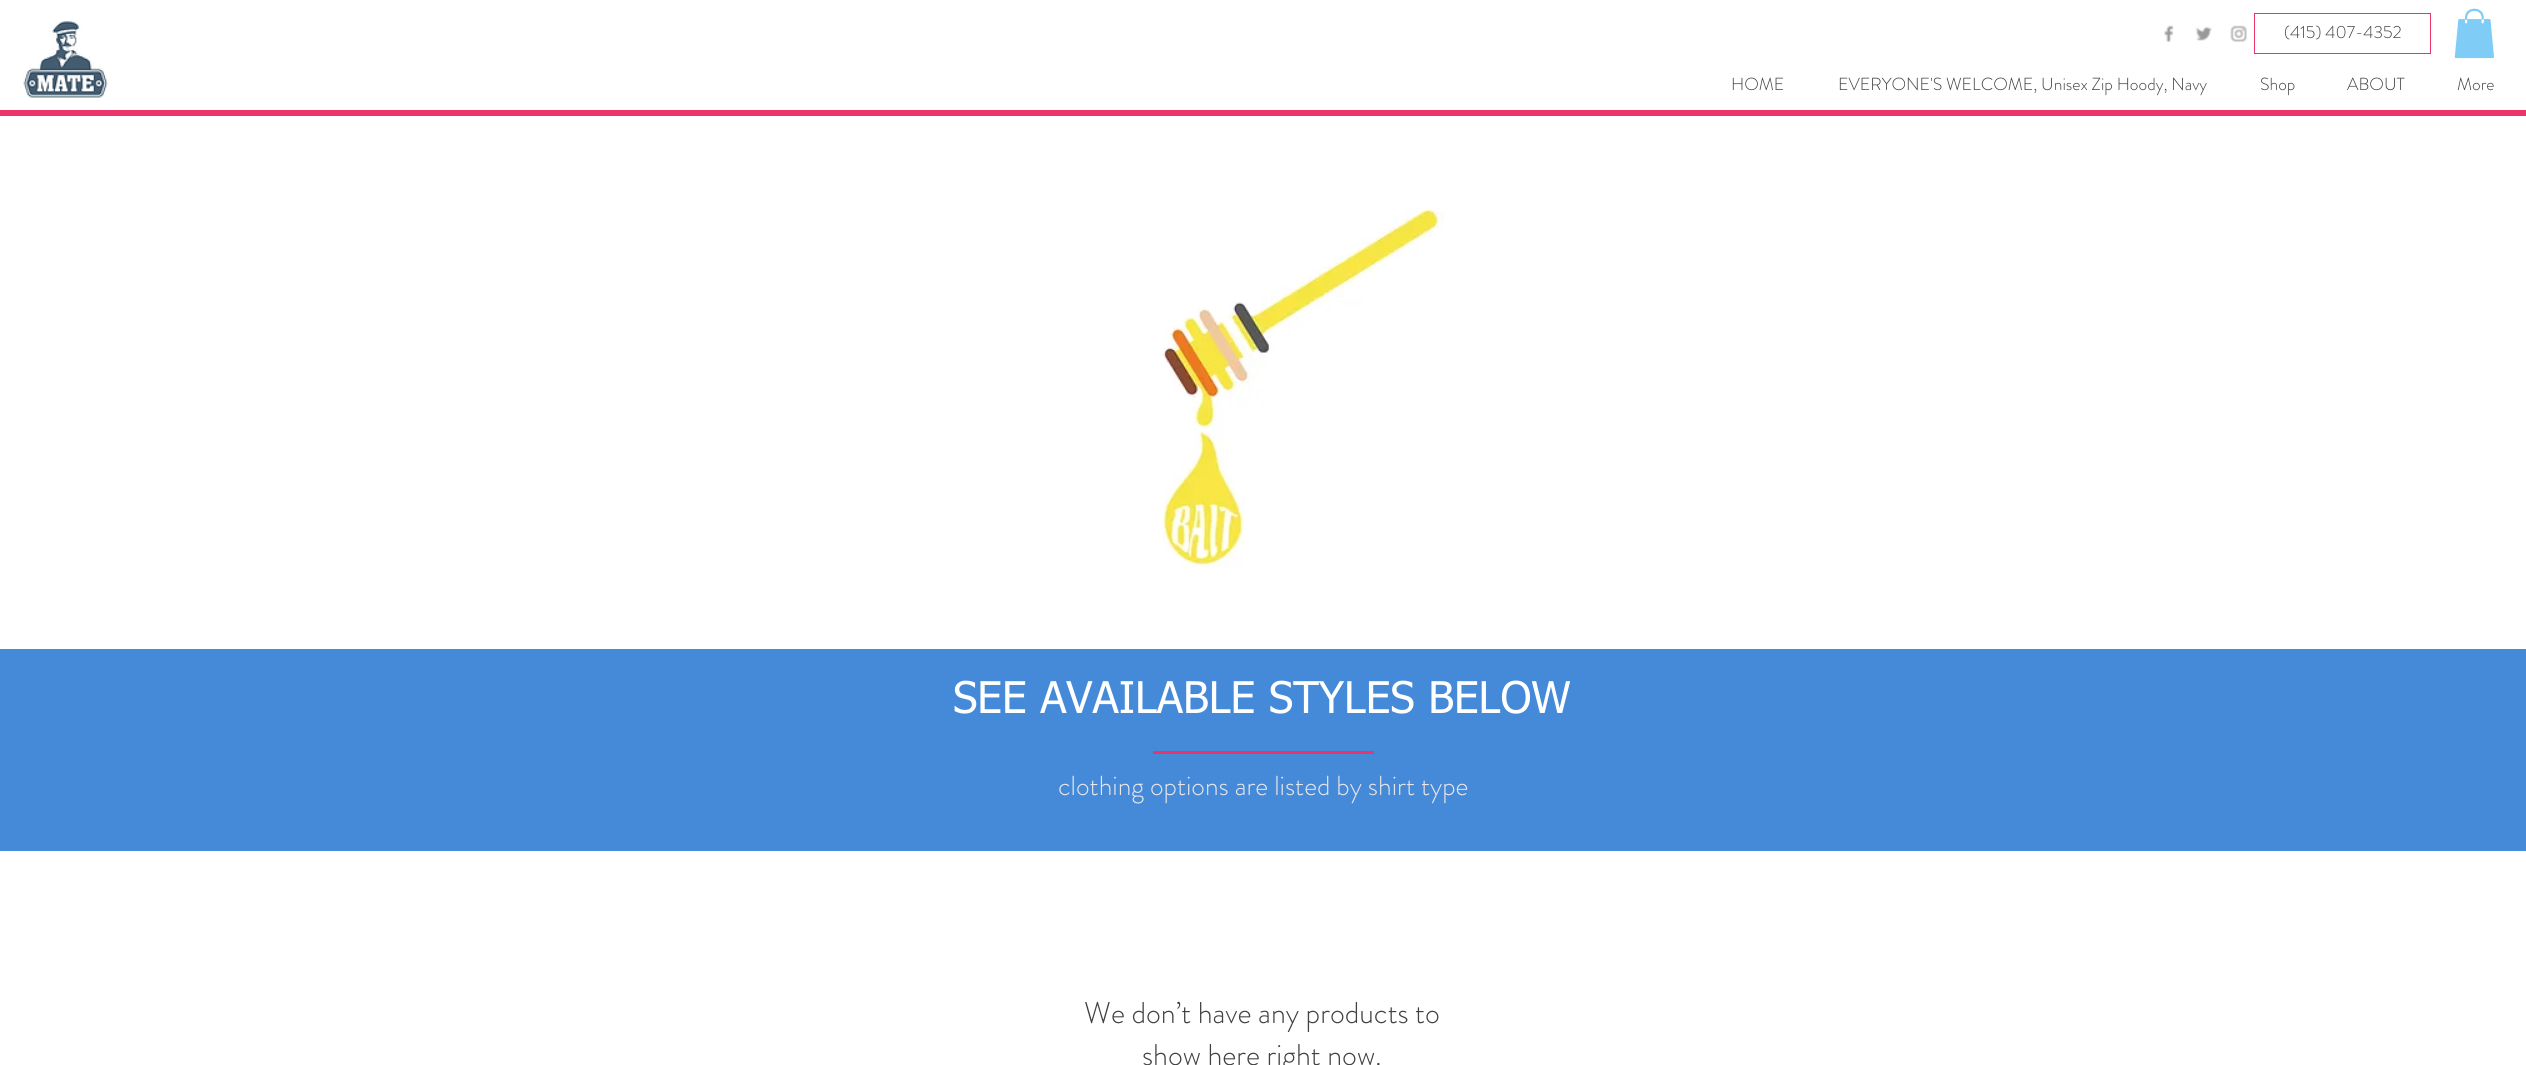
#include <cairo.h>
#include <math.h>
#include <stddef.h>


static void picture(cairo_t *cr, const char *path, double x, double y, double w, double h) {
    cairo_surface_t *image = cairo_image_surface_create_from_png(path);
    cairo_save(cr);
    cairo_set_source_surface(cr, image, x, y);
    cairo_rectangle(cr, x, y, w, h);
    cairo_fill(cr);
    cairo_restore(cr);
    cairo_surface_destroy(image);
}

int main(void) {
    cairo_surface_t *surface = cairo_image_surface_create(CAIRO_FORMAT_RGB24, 2526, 1065);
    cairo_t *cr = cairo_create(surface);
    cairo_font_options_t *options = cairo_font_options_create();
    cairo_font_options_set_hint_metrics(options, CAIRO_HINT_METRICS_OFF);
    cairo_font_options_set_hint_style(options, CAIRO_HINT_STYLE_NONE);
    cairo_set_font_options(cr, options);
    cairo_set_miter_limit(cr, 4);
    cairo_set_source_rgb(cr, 1, 1, 1);
    cairo_paint(cr);
    picture(cr, "img1.png", 23, 21, 85, 77);
    picture(cr, "img2.png", 2164, 25, 10, 18);
    picture(cr, "img3.png", 2195, 26, 17, 15);
    picture(cr, "img4.png", 2230, 25, 17, 17);
    cairo_rectangle(cr, 2254.5, 13.5, 176, 40);
    cairo_set_source_rgb(cr, 0.922, 0.204, 0.42);
    cairo_set_line_width(cr, 1);
    cairo_stroke(cr);
    cairo_select_font_face(cr, "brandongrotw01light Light", CAIRO_FONT_SLANT_NORMAL, CAIRO_FONT_WEIGHT_NORMAL);
    cairo_set_font_size(cr, 17.5);
    cairo_set_source_rgb(cr, 0.255, 0.255, 0.255);
    cairo_move_to(cr, 2284, 38);
    cairo_show_text(cr, "(415) 407-4352");
    picture(cr, "img5.png", 2454, 8, 40, 51);
    cairo_move_to(cr, 1731, 90);
    cairo_show_text(cr, "HOME");
    cairo_move_to(cr, 1838, 90);
    cairo_show_text(cr, "EVERYONE'S WELCOME, Unisex Zip Hoody, Navy");
    cairo_move_to(cr, 2260, 90);
    cairo_show_text(cr, "Shop");
    cairo_move_to(cr, 2347, 90);
    cairo_show_text(cr, "ABOUT");
    cairo_move_to(cr, 2457, 90);
    cairo_show_text(cr, "More");
    cairo_set_source_rgb(cr, 0.922, 0.204, 0.42);
    cairo_rectangle(cr, 0, 110, 2526, 6);
    cairo_fill(cr);
    picture(cr, "img6.png", 1162, 208, 282, 360);
    cairo_set_source_rgb(cr, 0.271, 0.541, 0.851);
    cairo_rectangle(cr, 0, 649, 2526, 202);
    cairo_fill(cr);
    cairo_select_font_face(cr, "tahoma", CAIRO_FONT_SLANT_NORMAL, CAIRO_FONT_WEIGHT_NORMAL);
    cairo_set_font_size(cr, 43.75);
    cairo_set_source_rgb(cr, 1, 1, 1);
    cairo_move_to(cr, 953, 713);
    cairo_show_text(cr, "SEE AVAILABLE STYLES BELOW");
    cairo_set_source_rgb(cr, 0.922, 0.204, 0.42);
    cairo_rectangle(cr, 1153, 751, 221, 3);
    cairo_fill(cr);
    cairo_select_font_face(cr, "brandongrotw01light Light", CAIRO_FONT_SLANT_NORMAL, CAIRO_FONT_WEIGHT_NORMAL);
    cairo_set_font_size(cr, 27.5);
    cairo_set_source_rgb(cr, 0.91, 0.902, 0.902);
    cairo_move_to(cr, 1058, 795);
    cairo_show_text(cr, "clothing options are listed by shirt type");
    cairo_set_font_size(cr, 30);
    cairo_set_source_rgb(cr, 0.255, 0.255, 0.255);
    cairo_move_to(cr, 1084, 1023);
    cairo_show_text(cr, "We don’t have any products to");
    cairo_move_to(cr, 1142, 1065);
    cairo_show_text(cr, "show here right now.");
    cairo_surface_write_to_png(surface, "page.png");
    cairo_font_options_destroy(options);
    cairo_destroy(cr);
    cairo_surface_destroy(surface);
    return 0;
}
